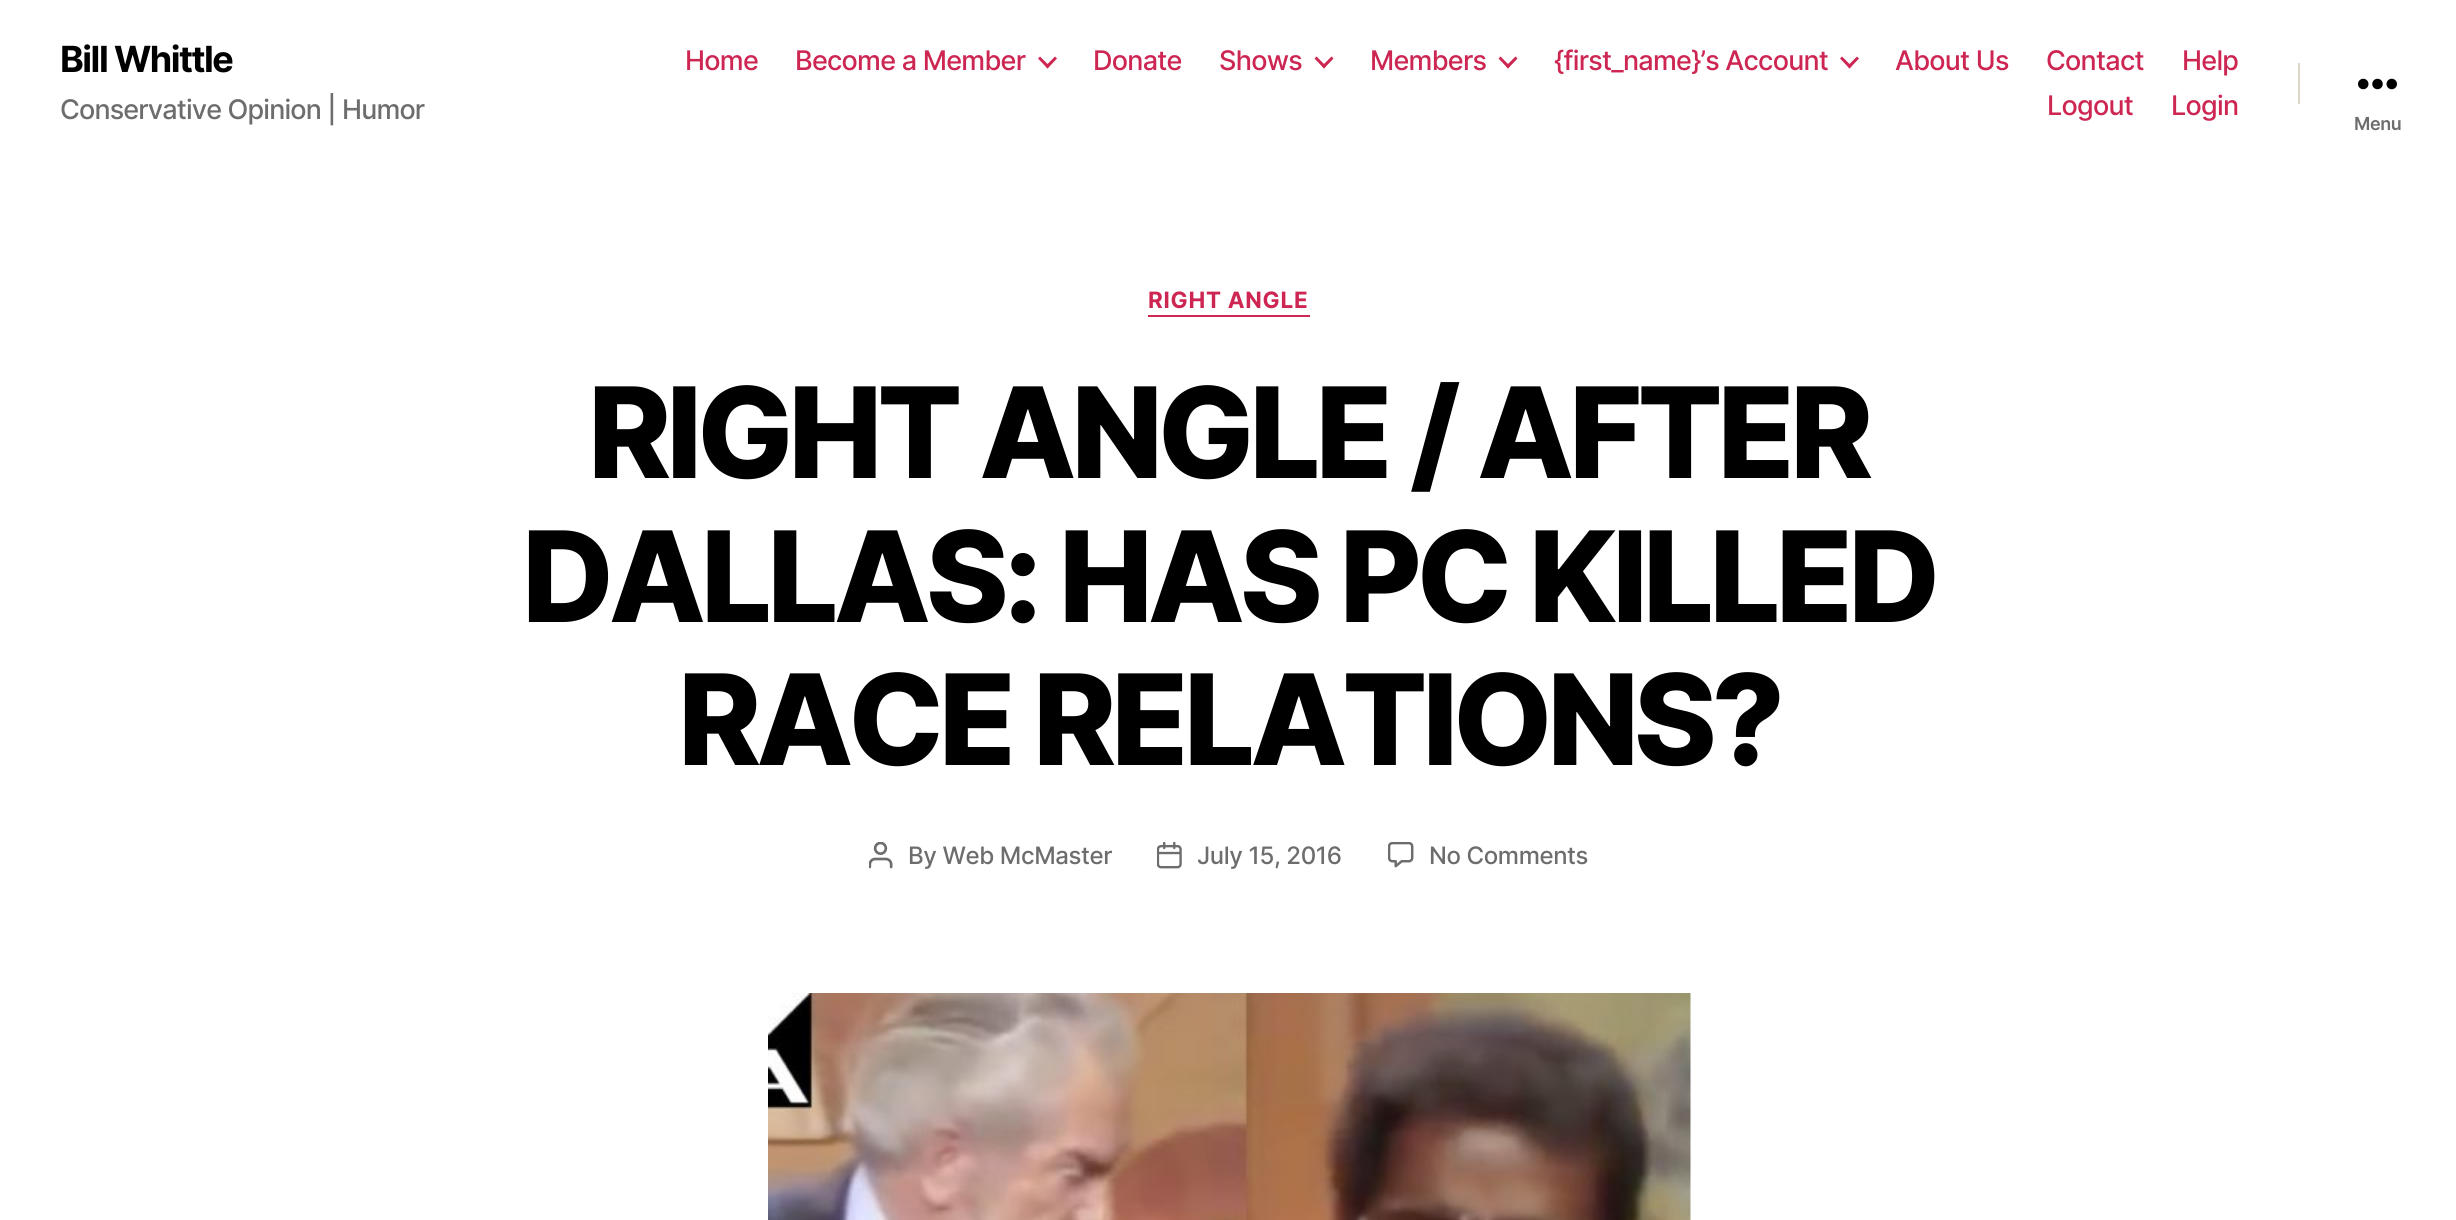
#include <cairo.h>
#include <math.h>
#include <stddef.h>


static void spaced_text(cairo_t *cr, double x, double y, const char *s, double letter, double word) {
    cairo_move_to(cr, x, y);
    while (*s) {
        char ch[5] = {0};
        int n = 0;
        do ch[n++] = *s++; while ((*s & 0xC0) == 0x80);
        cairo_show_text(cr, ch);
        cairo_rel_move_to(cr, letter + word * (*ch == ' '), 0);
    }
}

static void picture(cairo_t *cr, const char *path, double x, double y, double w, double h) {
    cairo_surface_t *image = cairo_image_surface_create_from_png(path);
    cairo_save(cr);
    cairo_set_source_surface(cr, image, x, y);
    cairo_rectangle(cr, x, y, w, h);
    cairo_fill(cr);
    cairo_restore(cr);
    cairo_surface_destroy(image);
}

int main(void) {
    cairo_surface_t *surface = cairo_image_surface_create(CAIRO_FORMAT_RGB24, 2456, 1220);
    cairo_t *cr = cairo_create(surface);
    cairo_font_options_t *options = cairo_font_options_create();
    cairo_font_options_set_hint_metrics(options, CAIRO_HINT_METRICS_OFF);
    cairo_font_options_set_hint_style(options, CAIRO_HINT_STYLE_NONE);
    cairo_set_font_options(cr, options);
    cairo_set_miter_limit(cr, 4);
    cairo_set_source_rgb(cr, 1, 1, 1);
    cairo_paint(cr);
    cairo_select_font_face(cr, "Inter", CAIRO_FONT_SLANT_NORMAL, CAIRO_FONT_WEIGHT_BOLD);
    cairo_set_font_size(cr, 36);
    cairo_set_source_rgb(cr, 0, 0, 0);
    spaced_text(cr, 60, 72, "Bill Whittle", -1.5, 0);
    cairo_select_font_face(cr, "Inter Medium", CAIRO_FONT_SLANT_NORMAL, CAIRO_FONT_WEIGHT_NORMAL);
    cairo_set_font_size(cr, 27);
    cairo_set_source_rgb(cr, 0.427, 0.427, 0.427);
    spaced_text(cr, 60, 119, "Conservative Opinion | Humor", -0.85, 0);
    cairo_set_source_rgb(cr, 0.804, 0.149, 0.325);
    spaced_text(cr, 685, 70, "Home", -0.75, 0);
    spaced_text(cr, 795, 70, "Become a Member", -0.75, 0);
    cairo_new_path(cr);
    cairo_move_to(cr, 1038, 58.5);
    cairo_line_to(cr, 1040, 56.5);
    cairo_line_to(cr, 1049.5, 66);
    cairo_line_to(cr, 1047.5, 68.5);
    cairo_close_path(cr);
    cairo_fill(cr);
    cairo_new_path(cr);
    cairo_move_to(cr, 1045.5, 66);
    cairo_line_to(cr, 1055, 56.5);
    cairo_line_to(cr, 1057, 58.5);
    cairo_line_to(cr, 1047.5, 68.5);
    cairo_close_path(cr);
    cairo_fill(cr);
    spaced_text(cr, 1093, 70, "Donate", -0.75, 0);
    spaced_text(cr, 1219, 70, "Shows", -0.75, 0);
    cairo_new_path(cr);
    cairo_move_to(cr, 1314.5, 58.5);
    cairo_line_to(cr, 1316.5, 56.5);
    cairo_line_to(cr, 1326, 66);
    cairo_line_to(cr, 1324, 68.5);
    cairo_close_path(cr);
    cairo_fill(cr);
    cairo_new_path(cr);
    cairo_move_to(cr, 1322, 66);
    cairo_line_to(cr, 1331.5, 56.5);
    cairo_line_to(cr, 1333.5, 58.5);
    cairo_line_to(cr, 1324, 68.5);
    cairo_close_path(cr);
    cairo_fill(cr);
    spaced_text(cr, 1370, 70, "Members", -0.75, 0);
    cairo_new_path(cr);
    cairo_move_to(cr, 1498.5, 58.5);
    cairo_line_to(cr, 1500.5, 56.5);
    cairo_line_to(cr, 1510, 66);
    cairo_line_to(cr, 1508, 68.5);
    cairo_close_path(cr);
    cairo_fill(cr);
    cairo_new_path(cr);
    cairo_move_to(cr, 1506, 66);
    cairo_line_to(cr, 1515.5, 56.5);
    cairo_line_to(cr, 1517.5, 58.5);
    cairo_line_to(cr, 1508, 68.5);
    cairo_close_path(cr);
    cairo_fill(cr);
    spaced_text(cr, 1554, 70, "{first_name}’s Account", -0.75, 0);
    cairo_new_path(cr);
    cairo_move_to(cr, 1840, 58.5);
    cairo_line_to(cr, 1842, 56.5);
    cairo_line_to(cr, 1851.5, 66);
    cairo_line_to(cr, 1849.5, 68.5);
    cairo_close_path(cr);
    cairo_fill(cr);
    cairo_new_path(cr);
    cairo_move_to(cr, 1847.5, 66);
    cairo_line_to(cr, 1857, 56.5);
    cairo_line_to(cr, 1859, 58.5);
    cairo_line_to(cr, 1849.5, 68.5);
    cairo_close_path(cr);
    cairo_fill(cr);
    spaced_text(cr, 1895, 70, "About Us", -0.75, 0);
    spaced_text(cr, 2046, 70, "Contact", -0.75, 0);
    spaced_text(cr, 2182, 70, "Help", -0.75, 0);
    spaced_text(cr, 2047, 115, "Logout", -0.75, 0);
    spaced_text(cr, 2171, 115, "Login", -0.75, 0);
    cairo_set_source_rgb(cr, 0.863, 0.843, 0.792);
    cairo_rectangle(cr, 2298, 63, 2, 41);
    cairo_fill(cr);
    picture(cr, "img1.png", 2358, 78, 39, 12);
    cairo_select_font_face(cr, "Inter SemiBold", CAIRO_FONT_SLANT_NORMAL, CAIRO_FONT_WEIGHT_NORMAL);
    cairo_set_font_size(cr, 18);
    cairo_set_source_rgb(cr, 0.427, 0.427, 0.427);
    spaced_text(cr, 2354, 130, "Menu", -0.4, 0);
    cairo_set_source_rgb(cr, 0.804, 0.149, 0.325);
    cairo_rectangle(cr, 1148, 315, 162, 2);
    cairo_fill(cr);
    cairo_select_font_face(cr, "Inter", CAIRO_FONT_SLANT_NORMAL, CAIRO_FONT_WEIGHT_BOLD);
    cairo_set_font_size(cr, 22.5);
    spaced_text(cr, 1148, 308, "RIGHT ANGLE", 0.75, 0);
    cairo_select_font_face(cr, "Inter ExtraBold", CAIRO_FONT_SLANT_NORMAL, CAIRO_FONT_WEIGHT_NORMAL);
    cairo_set_font_size(cr, 126);
    cairo_set_source_rgb(cr, 0, 0, 0);
    spaced_text(cr, 588, 478, "RIGHT ANGLE / AFTER", -5.25, 0);
    spaced_text(cr, 522, 622, "DALLAS: HAS PC KILLED", -5.25, 0);
    spaced_text(cr, 678, 765, "RACE RELATIONS?", -5.25, 0);
    picture(cr, "img2.png", 869, 842, 24, 27);
    cairo_select_font_face(cr, "Inter Medium", CAIRO_FONT_SLANT_NORMAL, CAIRO_FONT_WEIGHT_NORMAL);
    cairo_set_font_size(cr, 24);
    cairo_set_source_rgb(cr, 0.427, 0.427, 0.427);
    spaced_text(cr, 908, 864, "By Web McMaster", -0.4, 0);
    picture(cr, "img3.png", 1157, 842, 25, 27);
    spaced_text(cr, 1197, 864, "July 15, 2016", -0.4, 0);
    picture(cr, "img4.png", 1388, 842, 26, 26);
    spaced_text(cr, 1429, 864, "No Comments", -0.4, 0);
    picture(cr, "img5.png", 768, 993, 923, 227);
    cairo_surface_write_to_png(surface, "page.png");
    cairo_font_options_destroy(options);
    cairo_destroy(cr);
    cairo_surface_destroy(surface);
    return 0;
}
